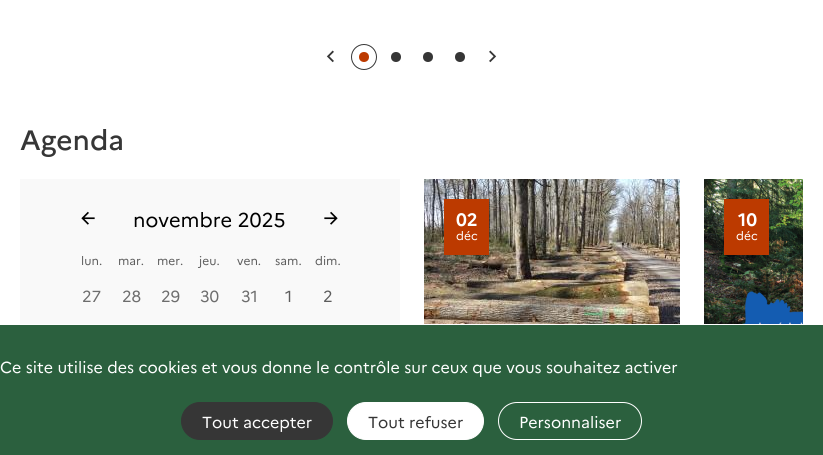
#include <cairo.h>
#include <math.h>
#include <stddef.h>


static void round_rect(cairo_t *cr, double x, double y, double w, double h, double r) {
    cairo_new_sub_path(cr);
    cairo_arc(cr, x + w - r, y + h - r, r, 0, M_PI / 2);
    cairo_arc(cr, x + r, y + h - r, r, M_PI / 2, M_PI);
    cairo_arc(cr, x + r, y + r, r, M_PI, 1.5 * M_PI);
    cairo_arc(cr, x + w - r, y + r, r, 1.5 * M_PI, 2 * M_PI);
    cairo_close_path(cr);
}

static void picture(cairo_t *cr, const char *path, double x, double y, double w, double h) {
    cairo_surface_t *image = cairo_image_surface_create_from_png(path);
    cairo_save(cr);
    cairo_set_source_surface(cr, image, x, y);
    cairo_rectangle(cr, x, y, w, h);
    cairo_fill(cr);
    cairo_restore(cr);
    cairo_surface_destroy(image);
}

int main(void) {
    cairo_surface_t *surface = cairo_image_surface_create(CAIRO_FORMAT_RGB24, 823, 455);
    cairo_t *cr = cairo_create(surface);
    cairo_font_options_t *options = cairo_font_options_create();
    cairo_font_options_set_hint_metrics(options, CAIRO_HINT_METRICS_OFF);
    cairo_font_options_set_hint_style(options, CAIRO_HINT_STYLE_NONE);
    cairo_set_font_options(cr, options);
    cairo_set_miter_limit(cr, 4);
    cairo_set_source_rgb(cr, 1, 1, 1);
    cairo_paint(cr);
    picture(cr, "img1.png", 326, 50, 8, 13);
    cairo_set_source_rgb(cr, 0.737, 0.227, 0);
    cairo_arc(cr, 364, 57, 5, 0, 2 * M_PI);
    cairo_fill(cr);
    cairo_arc(cr, 364, 57, 12.5, 0, 2 * M_PI);
    cairo_set_source_rgb(cr, 0.212, 0.212, 0.212);
    cairo_set_line_width(cr, 1);
    cairo_stroke(cr);
    cairo_arc(cr, 396, 57, 5, 0, 2 * M_PI);
    cairo_fill(cr);
    cairo_arc(cr, 428, 57, 5, 0, 2 * M_PI);
    cairo_fill(cr);
    cairo_arc(cr, 460, 57, 5, 0, 2 * M_PI);
    cairo_fill(cr);
    picture(cr, "img2.png", 489, 50, 8, 13);
    cairo_select_font_face(cr, "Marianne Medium", CAIRO_FONT_SLANT_NORMAL, CAIRO_FONT_WEIGHT_NORMAL);
    cairo_set_font_size(cr, 28);
    cairo_move_to(cr, 20, 150);
    cairo_show_text(cr, "Agenda");
    cairo_set_source_rgb(cr, 0.973, 0.973, 0.973);
    cairo_rectangle(cr, 20, 179, 380, 145);
    cairo_fill(cr);
    picture(cr, "img3.png", 81, 211, 14, 14);
    cairo_select_font_face(cr, "Marianne", CAIRO_FONT_SLANT_NORMAL, CAIRO_FONT_WEIGHT_NORMAL);
    cairo_set_font_size(cr, 20);
    cairo_set_source_rgb(cr, 0, 0, 0);
    cairo_move_to(cr, 133, 227);
    cairo_show_text(cr, "novembre 2025");
    picture(cr, "img4.png", 324, 211, 14, 14);
    cairo_set_font_size(cr, 12);
    cairo_set_source_rgb(cr, 0.365, 0.365, 0.365);
    cairo_move_to(cr, 81, 265);
    cairo_show_text(cr, "lun.");
    cairo_move_to(cr, 118, 265);
    cairo_show_text(cr, "mar.");
    cairo_move_to(cr, 157, 265);
    cairo_show_text(cr, "mer.");
    cairo_move_to(cr, 199, 265);
    cairo_show_text(cr, "jeu.");
    cairo_move_to(cr, 237, 265);
    cairo_show_text(cr, "ven.");
    cairo_move_to(cr, 275, 265);
    cairo_show_text(cr, "sam.");
    cairo_move_to(cr, 315, 265);
    cairo_show_text(cr, "dim.");
    cairo_set_font_size(cr, 16);
    cairo_set_source_rgb(cr, 0.427, 0.427, 0.427);
    cairo_move_to(cr, 82, 302);
    cairo_show_text(cr, "27");
    cairo_move_to(cr, 122, 302);
    cairo_show_text(cr, "28");
    cairo_move_to(cr, 161, 302);
    cairo_show_text(cr, "29");
    cairo_move_to(cr, 200, 302);
    cairo_show_text(cr, "30");
    cairo_move_to(cr, 241, 302);
    cairo_show_text(cr, "31");
    cairo_set_source_rgb(cr, 0.365, 0.365, 0.365);
    cairo_move_to(cr, 285, 302);
    cairo_show_text(cr, "1");
    cairo_move_to(cr, 323, 302);
    cairo_show_text(cr, "2");
    picture(cr, "img5.png", 424, 179, 256, 145);
    cairo_set_source_rgb(cr, 0.737, 0.227, 0);
    cairo_rectangle(cr, 444, 199, 45, 56);
    cairo_fill(cr);
    cairo_select_font_face(cr, "Marianne", CAIRO_FONT_SLANT_NORMAL, CAIRO_FONT_WEIGHT_BOLD);
    cairo_set_font_size(cr, 18);
    cairo_set_source_rgb(cr, 1, 1, 1);
    cairo_move_to(cr, 456, 226);
    cairo_show_text(cr, "02");
    cairo_select_font_face(cr, "Marianne", CAIRO_FONT_SLANT_NORMAL, CAIRO_FONT_WEIGHT_NORMAL);
    cairo_set_font_size(cr, 12);
    cairo_move_to(cr, 456, 240);
    cairo_show_text(cr, "déc");
    picture(cr, "img6.png", 704, 179, 99, 145);
    cairo_set_source_rgb(cr, 0.737, 0.227, 0);
    cairo_rectangle(cr, 724, 199, 45, 56);
    cairo_fill(cr);
    cairo_select_font_face(cr, "Marianne", CAIRO_FONT_SLANT_NORMAL, CAIRO_FONT_WEIGHT_BOLD);
    cairo_set_font_size(cr, 18);
    cairo_set_source_rgb(cr, 1, 1, 1);
    cairo_move_to(cr, 738, 226);
    cairo_show_text(cr, "10");
    cairo_select_font_face(cr, "Marianne", CAIRO_FONT_SLANT_NORMAL, CAIRO_FONT_WEIGHT_NORMAL);
    cairo_set_font_size(cr, 12);
    cairo_move_to(cr, 736, 240);
    cairo_show_text(cr, "déc");
    cairo_set_source_rgb(cr, 0.169, 0.376, 0.243);
    cairo_rectangle(cr, 0, 325, 823, 130);
    cairo_fill(cr);
    cairo_set_font_size(cr, 16);
    cairo_set_source_rgb(cr, 1, 1, 1);
    cairo_move_to(cr, 0, 373);
    cairo_show_text(cr, "Ce site utilise des cookies et vous donne le contrôle sur ceux que vous souhaitez activer");
    cairo_set_source_rgb(cr, 0.212, 0.212, 0.212);
    round_rect(cr, 181.5, 402.5, 151, 37, 18.5);
    cairo_fill_preserve(cr);
    cairo_stroke(cr);
    cairo_set_source_rgb(cr, 1, 1, 1);
    cairo_move_to(cr, 202, 428);
    cairo_show_text(cr, "Tout accepter");
    round_rect(cr, 347.5, 402.5, 136, 37, 18.5);
    cairo_fill_preserve(cr);
    cairo_stroke(cr);
    cairo_set_source_rgb(cr, 0.212, 0.212, 0.212);
    cairo_move_to(cr, 368, 428);
    cairo_show_text(cr, "Tout refuser");
    round_rect(cr, 498.5, 402.5, 143, 37, 18.5);
    cairo_set_source_rgb(cr, 1, 1, 1);
    cairo_stroke(cr);
    cairo_move_to(cr, 519, 428);
    cairo_show_text(cr, "Personnaliser");
    cairo_surface_write_to_png(surface, "page.png");
    cairo_font_options_destroy(options);
    cairo_destroy(cr);
    cairo_surface_destroy(surface);
    return 0;
}
